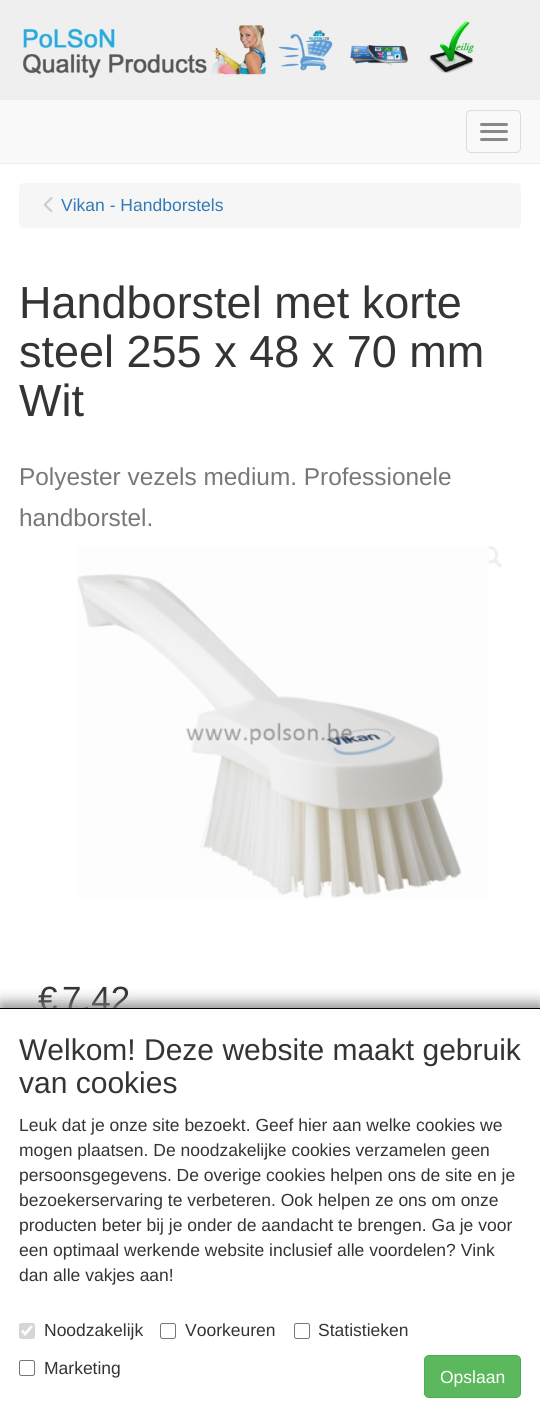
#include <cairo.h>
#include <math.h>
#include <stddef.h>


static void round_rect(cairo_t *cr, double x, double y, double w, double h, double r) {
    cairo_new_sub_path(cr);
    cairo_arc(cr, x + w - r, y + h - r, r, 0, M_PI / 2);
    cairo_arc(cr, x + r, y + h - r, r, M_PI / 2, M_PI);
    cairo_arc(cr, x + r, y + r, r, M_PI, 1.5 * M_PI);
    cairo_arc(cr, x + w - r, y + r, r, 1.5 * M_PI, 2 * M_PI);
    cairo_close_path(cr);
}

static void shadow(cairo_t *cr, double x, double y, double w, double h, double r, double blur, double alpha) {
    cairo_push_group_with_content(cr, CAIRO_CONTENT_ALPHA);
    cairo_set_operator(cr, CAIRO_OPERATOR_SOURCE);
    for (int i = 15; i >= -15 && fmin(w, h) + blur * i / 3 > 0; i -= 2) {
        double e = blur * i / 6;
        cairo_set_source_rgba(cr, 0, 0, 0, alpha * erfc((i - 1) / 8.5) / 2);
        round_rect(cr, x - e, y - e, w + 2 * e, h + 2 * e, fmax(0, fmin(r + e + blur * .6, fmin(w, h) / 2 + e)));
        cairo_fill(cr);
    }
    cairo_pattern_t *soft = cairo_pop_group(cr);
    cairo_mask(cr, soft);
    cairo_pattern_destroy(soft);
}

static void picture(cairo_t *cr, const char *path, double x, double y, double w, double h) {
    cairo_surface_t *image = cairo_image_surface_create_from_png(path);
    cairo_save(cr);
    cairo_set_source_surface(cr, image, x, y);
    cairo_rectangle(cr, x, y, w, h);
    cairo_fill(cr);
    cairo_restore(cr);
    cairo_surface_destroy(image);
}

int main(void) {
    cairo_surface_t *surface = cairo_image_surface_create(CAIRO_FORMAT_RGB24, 540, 1414);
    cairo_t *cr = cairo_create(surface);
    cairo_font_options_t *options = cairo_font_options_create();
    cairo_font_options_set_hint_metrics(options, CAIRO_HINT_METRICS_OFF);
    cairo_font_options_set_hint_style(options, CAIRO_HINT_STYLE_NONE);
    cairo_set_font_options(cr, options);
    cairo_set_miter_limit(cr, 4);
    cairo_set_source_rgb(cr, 1, 1, 1);
    cairo_paint(cr);
    cairo_set_source_rgb(cr, 0.937, 0.937, 0.937);
    cairo_rectangle(cr, 0, 0, 540, 100);
    cairo_fill(cr);
    picture(cr, "img1.png", 22, 20, 453, 58);
    cairo_set_source_rgb(cr, 0.973, 0.973, 0.973);
    cairo_rectangle(cr, 0, 100, 540, 63);
    cairo_fill(cr);
    cairo_set_source_rgb(cr, 0.922, 0.922, 0.922);
    cairo_rectangle(cr, 0, 163, 540, 1);
    cairo_fill(cr);
    round_rect(cr, 466.5, 110.5, 54, 42, 4.5);
    cairo_set_source_rgb(cr, 0.867, 0.867, 0.867);
    cairo_set_line_width(cr, 1);
    cairo_stroke(cr);
    cairo_set_source_rgb(cr, 0.533, 0.533, 0.533);
    round_rect(cr, 480, 123, 28, 3, 1.5);
    cairo_fill(cr);
    round_rect(cr, 480, 130, 28, 3, 1.5);
    cairo_fill(cr);
    round_rect(cr, 480, 138, 28, 3, 1.5);
    cairo_fill(cr);
    cairo_set_source_rgb(cr, 0.961, 0.961, 0.961);
    round_rect(cr, 19, 183, 502, 45, 5);
    cairo_fill(cr);
    picture(cr, "img2.png", 43, 197, 10, 16);
    cairo_select_font_face(cr, "Liberation Sans", CAIRO_FONT_SLANT_NORMAL, CAIRO_FONT_WEIGHT_NORMAL);
    cairo_set_font_size(cr, 17.5);
    cairo_set_source_rgb(cr, 0.2, 0.478, 0.718);
    cairo_move_to(cr, 61, 211);
    cairo_show_text(cr, "Vikan - Handborstels");
    cairo_set_font_size(cr, 45);
    cairo_set_source_rgb(cr, 0.204, 0.204, 0.204);
    cairo_move_to(cr, 19, 318);
    cairo_show_text(cr, "Handborstel met korte");
    cairo_move_to(cr, 19, 367);
    cairo_show_text(cr, "steel 255 x 48 x 70 mm");
    cairo_move_to(cr, 19, 416);
    cairo_show_text(cr, "Wit");
    cairo_set_font_size(cr, 24.4);
    cairo_set_source_rgb(cr, 0.471, 0.471, 0.471);
    cairo_move_to(cr, 19, 485);
    cairo_show_text(cr, "Polyester vezels medium. Professionele");
    cairo_move_to(cr, 19, 526);
    cairo_show_text(cr, "handborstel.");
    picture(cr, "img4.png", 484, 546, 18, 22);
    picture(cr, "img3.png", 77, 546, 412, 353);
    cairo_set_font_size(cr, 35);
    cairo_set_source_rgb(cr, 0.204, 0.204, 0.204);
    cairo_move_to(cr, 38, 1011);
    cairo_show_text(cr, "€");
    cairo_move_to(cr, 62, 1011);
    cairo_show_text(cr, "7.42");
    cairo_set_source_rgb(cr, 0.502, 0.502, 0.502);
    shadow(cr, 1, 1004, 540, 407, 0, 7.5, 1);
    cairo_set_source_rgb(cr, 1, 1, 1);
    cairo_rectangle(cr, 0, 1009, 540, 405);
    cairo_fill(cr);
    cairo_set_source_rgb(cr, 0, 0, 0);
    cairo_rectangle(cr, 0, 1008, 540, 1);
    cairo_fill(cr);
    cairo_set_font_size(cr, 30);
    cairo_set_source_rgb(cr, 0.204, 0.204, 0.204);
    cairo_move_to(cr, 19, 1060);
    cairo_show_text(cr, "Welkom! Deze website maakt gebruik");
    cairo_move_to(cr, 19, 1093);
    cairo_show_text(cr, "van cookies");
    cairo_set_font_size(cr, 17.5);
    cairo_move_to(cr, 19, 1131);
    cairo_show_text(cr, "Leuk dat je onze site bezoekt. Geef hier aan welke cookies we");
    cairo_move_to(cr, 19, 1156);
    cairo_show_text(cr, "mogen plaatsen. De noodzakelijke cookies verzamelen geen");
    cairo_move_to(cr, 19, 1181);
    cairo_show_text(cr, "persoonsgegevens. De overige cookies helpen ons de site en je");
    cairo_move_to(cr, 19, 1206);
    cairo_show_text(cr, "bezoekerservaring te verbeteren. Ook helpen ze ons om onze");
    cairo_move_to(cr, 19, 1231);
    cairo_show_text(cr, "producten beter bij je onder de aandacht te brengen. Ga je voor");
    cairo_move_to(cr, 19, 1256);
    cairo_show_text(cr, "een optimaal werkende website inclusief alle voordelen? Vink");
    cairo_move_to(cr, 19, 1281);
    cairo_show_text(cr, "dan alle vakjes aan!");
    cairo_set_source_rgb(cr, 0.839, 0.839, 0.839);
    round_rect(cr, 19, 1323, 16, 16, 2.5);
    cairo_fill(cr);
    cairo_new_path(cr);
    cairo_move_to(cr, 22, 1330.5);
    cairo_line_to(cr, 25, 1334);
    cairo_line_to(cr, 32, 1326);
    cairo_set_source_rgb(cr, 1, 1, 1);
    cairo_set_line_width(cr, 2.6);
    cairo_stroke(cr);
    cairo_set_source_rgb(cr, 0.204, 0.204, 0.204);
    cairo_move_to(cr, 44, 1336);
    cairo_show_text(cr, "Noodzakelijk");
    round_rect(cr, 160.5, 1323.5, 15, 15, 2);
    cairo_set_source_rgb(cr, 0.463, 0.463, 0.463);
    cairo_set_line_width(cr, 1);
    cairo_stroke(cr);
    cairo_set_source_rgb(cr, 0.204, 0.204, 0.204);
    cairo_move_to(cr, 185, 1336);
    cairo_show_text(cr, "Voorkeuren");
    round_rect(cr, 294.5, 1323.5, 15, 15, 2);
    cairo_set_source_rgb(cr, 0.463, 0.463, 0.463);
    cairo_stroke(cr);
    cairo_set_source_rgb(cr, 0.204, 0.204, 0.204);
    cairo_move_to(cr, 318, 1336);
    cairo_show_text(cr, "Statistieken");
    round_rect(cr, 19.5, 1360.5, 15, 15, 2);
    cairo_set_source_rgb(cr, 0.463, 0.463, 0.463);
    cairo_stroke(cr);
    cairo_set_source_rgb(cr, 0.204, 0.204, 0.204);
    cairo_move_to(cr, 44, 1374);
    cairo_show_text(cr, "Marketing");
    cairo_set_source_rgb(cr, 0.361, 0.722, 0.361);
    round_rect(cr, 424.5, 1355.5, 96, 42, 4.5);
    cairo_fill_preserve(cr);
    cairo_set_source_rgb(cr, 0.298, 0.682, 0.298);
    cairo_stroke(cr);
    cairo_set_source_rgb(cr, 0.996, 0.996, 0.996);
    cairo_move_to(cr, 440, 1383);
    cairo_show_text(cr, "Opslaan");
    cairo_surface_write_to_png(surface, "page.png");
    cairo_font_options_destroy(options);
    cairo_destroy(cr);
    cairo_surface_destroy(surface);
    return 0;
}
